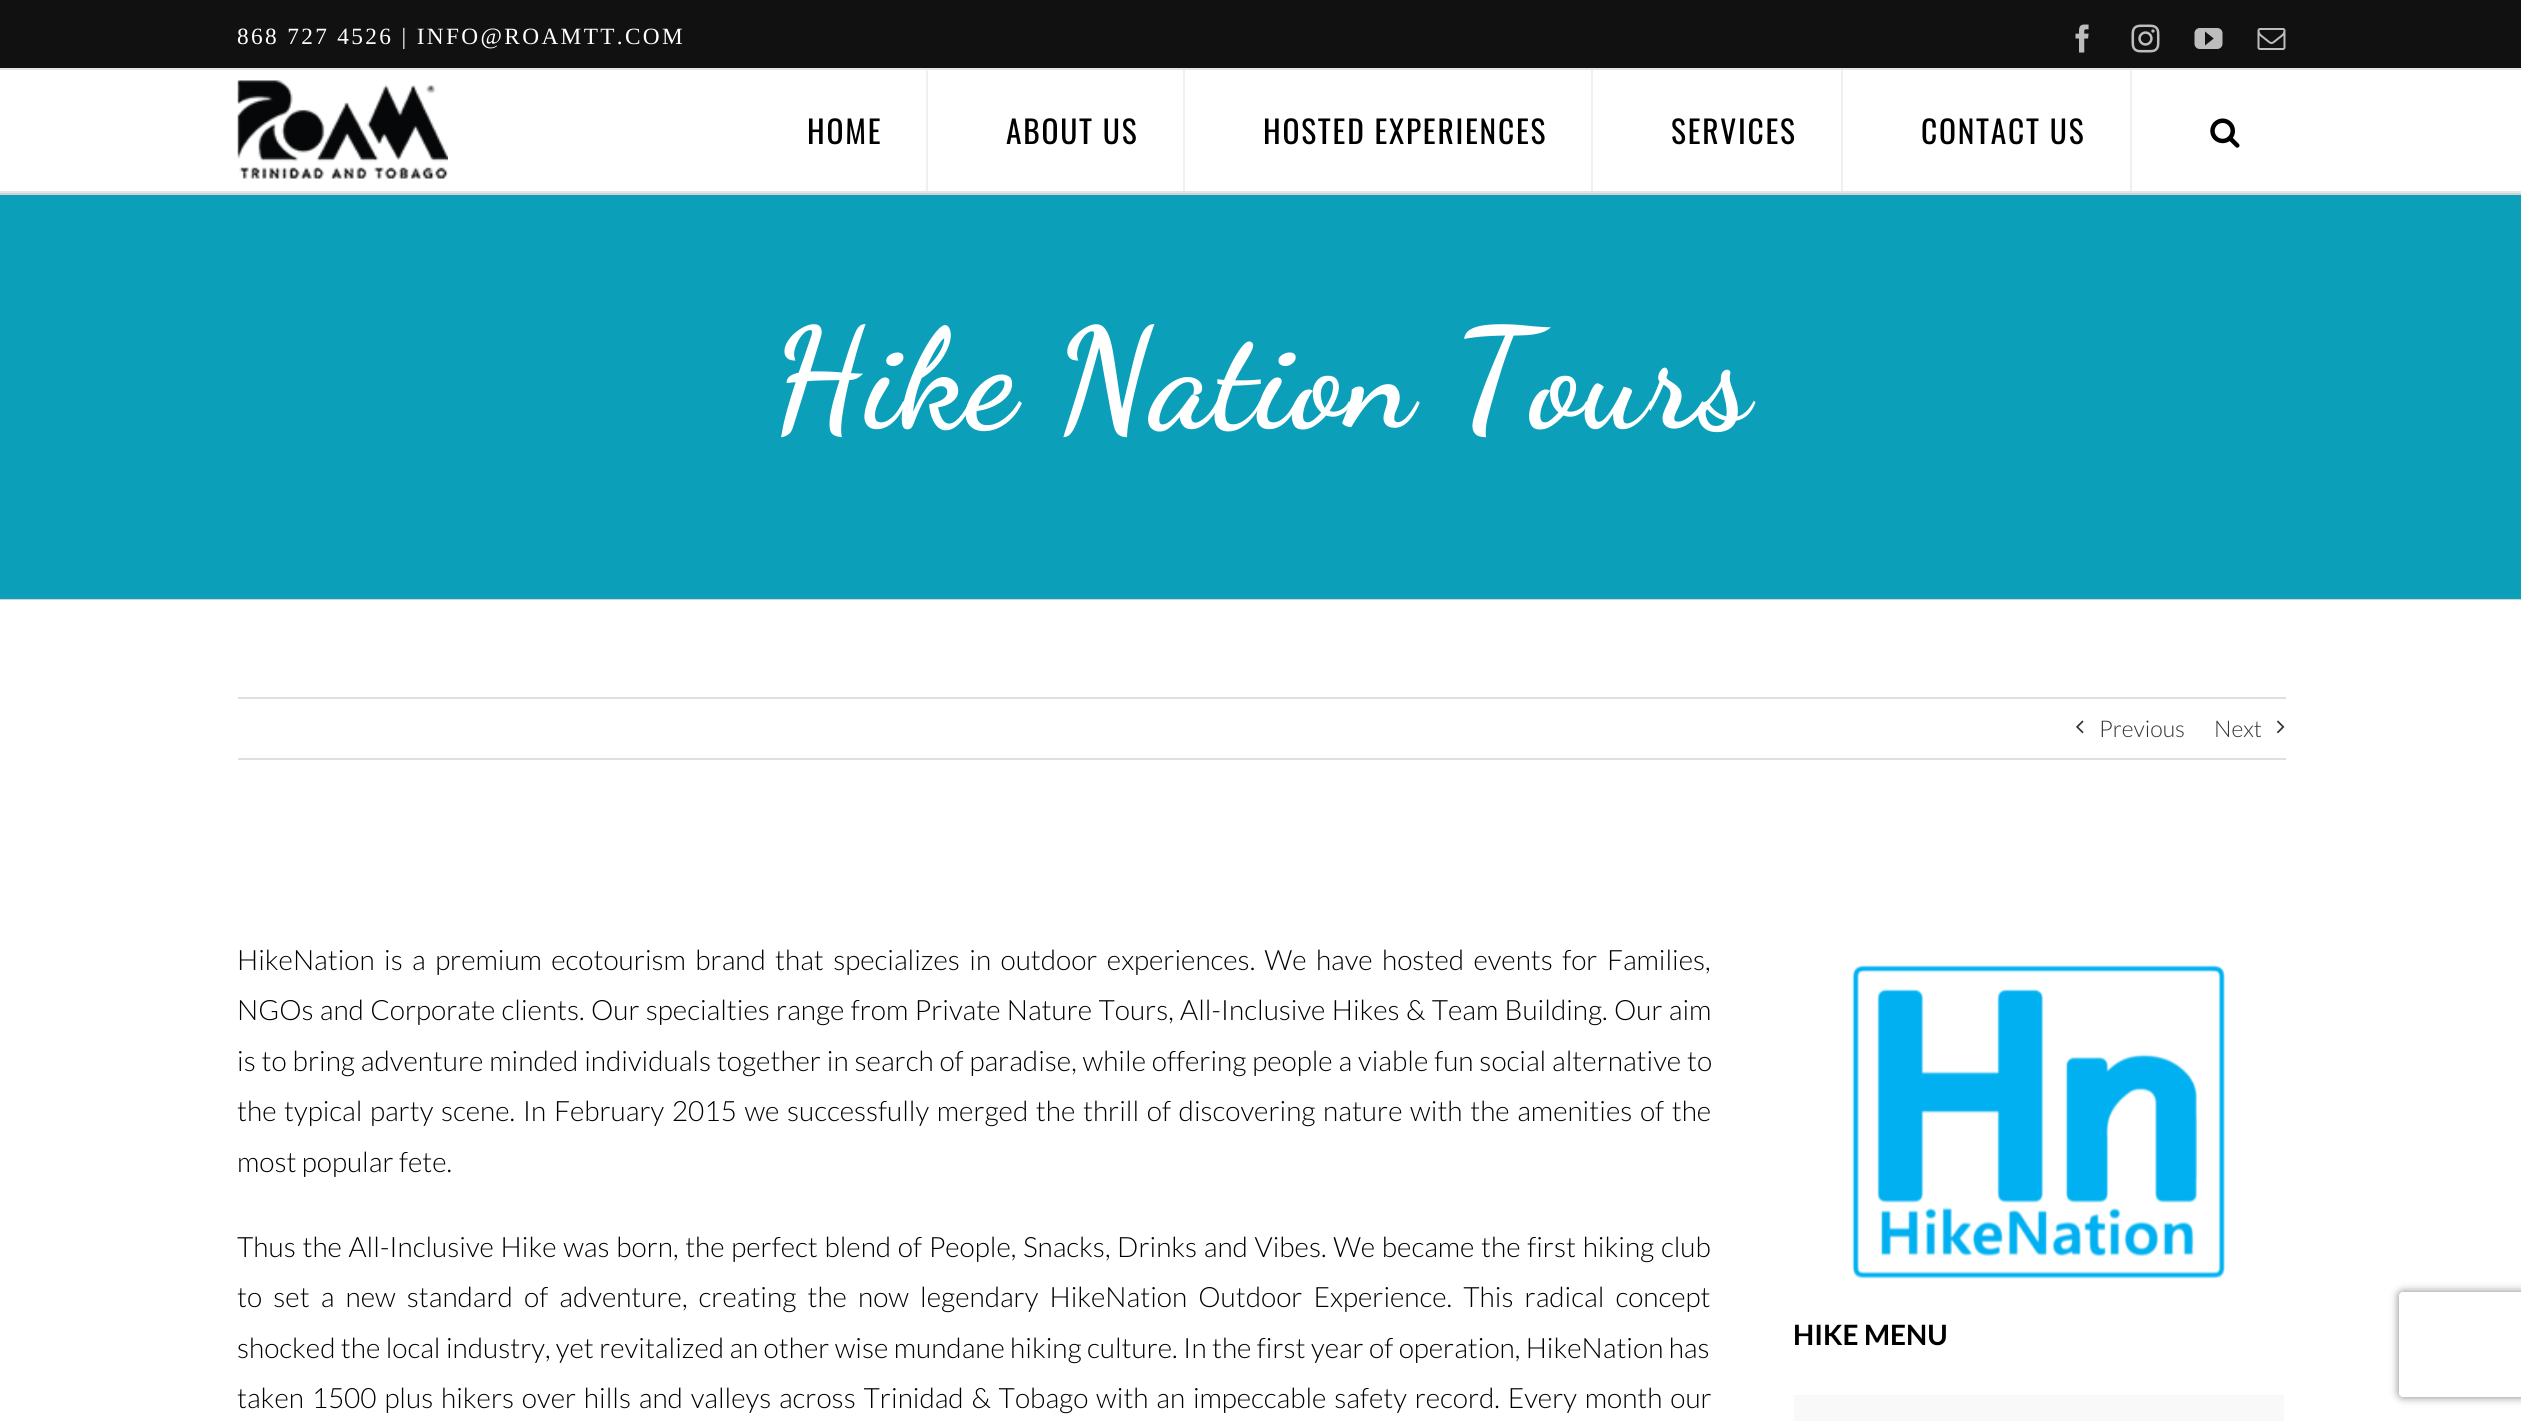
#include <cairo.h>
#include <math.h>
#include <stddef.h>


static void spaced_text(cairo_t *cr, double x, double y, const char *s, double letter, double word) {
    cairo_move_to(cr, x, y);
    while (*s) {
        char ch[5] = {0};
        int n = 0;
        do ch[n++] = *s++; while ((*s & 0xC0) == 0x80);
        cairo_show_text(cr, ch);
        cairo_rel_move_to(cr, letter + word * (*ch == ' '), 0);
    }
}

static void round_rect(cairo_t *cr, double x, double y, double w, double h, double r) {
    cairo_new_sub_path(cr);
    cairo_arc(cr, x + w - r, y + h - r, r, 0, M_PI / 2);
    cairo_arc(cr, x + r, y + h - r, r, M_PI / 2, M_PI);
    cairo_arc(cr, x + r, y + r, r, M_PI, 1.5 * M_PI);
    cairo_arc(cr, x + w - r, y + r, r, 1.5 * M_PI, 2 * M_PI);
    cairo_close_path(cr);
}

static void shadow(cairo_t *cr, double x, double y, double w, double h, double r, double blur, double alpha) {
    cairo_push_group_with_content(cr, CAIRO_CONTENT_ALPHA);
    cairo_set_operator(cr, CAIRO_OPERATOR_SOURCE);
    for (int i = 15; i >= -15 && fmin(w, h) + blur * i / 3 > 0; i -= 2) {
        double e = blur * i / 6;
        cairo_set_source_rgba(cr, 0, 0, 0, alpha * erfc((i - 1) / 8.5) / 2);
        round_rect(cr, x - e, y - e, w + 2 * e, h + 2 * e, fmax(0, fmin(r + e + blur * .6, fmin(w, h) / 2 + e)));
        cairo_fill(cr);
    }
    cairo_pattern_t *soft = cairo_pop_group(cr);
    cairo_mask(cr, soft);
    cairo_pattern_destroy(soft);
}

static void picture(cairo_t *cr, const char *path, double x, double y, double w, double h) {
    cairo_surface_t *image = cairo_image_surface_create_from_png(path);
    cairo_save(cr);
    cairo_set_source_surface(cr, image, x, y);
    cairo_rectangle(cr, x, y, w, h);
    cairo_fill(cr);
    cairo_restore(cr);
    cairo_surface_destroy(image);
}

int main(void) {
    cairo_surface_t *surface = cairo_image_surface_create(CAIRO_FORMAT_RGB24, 2521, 1421);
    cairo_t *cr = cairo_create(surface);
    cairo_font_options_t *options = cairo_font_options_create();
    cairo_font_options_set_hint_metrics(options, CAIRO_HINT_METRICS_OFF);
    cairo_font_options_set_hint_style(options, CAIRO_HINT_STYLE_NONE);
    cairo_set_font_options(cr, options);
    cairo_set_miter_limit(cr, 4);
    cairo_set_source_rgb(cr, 1, 1, 1);
    cairo_paint(cr);
    cairo_set_source_rgb(cr, 0.067, 0.067, 0.067);
    cairo_rectangle(cr, 0, 0, 2521, 68);
    cairo_fill(cr);
    cairo_set_source_rgb(cr, 0.898, 0.898, 0.898);
    cairo_rectangle(cr, 0, 68, 2521, 2);
    cairo_fill(cr);
    cairo_select_font_face(cr, "Liberation Serif", CAIRO_FONT_SLANT_NORMAL, CAIRO_FONT_WEIGHT_NORMAL);
    cairo_set_font_size(cr, 23.3);
    cairo_set_source_rgb(cr, 1, 1, 1);
    spaced_text(cr, 237, 44, "868 727 4526 | INFO@ROAMTT.COM", 2.35, 0);
    picture(cr, "img1.png", 2075, 24, 14, 29);
    picture(cr, "img2.png", 2131, 24, 29, 29);
    picture(cr, "img3.png", 2194, 28, 29, 21);
    picture(cr, "img4.png", 2257, 28, 29, 22);
    cairo_set_source_rgb(cr, 0.898, 0.898, 0.898);
    cairo_rectangle(cr, 0, 191, 2521, 2);
    cairo_fill(cr);
    picture(cr, "img5.png", 237, 80, 211, 99);
    cairo_set_source_rgb(cr, 0.941, 0.941, 0.941);
    cairo_rectangle(cr, 926, 70, 2, 121);
    cairo_fill(cr);
    cairo_select_font_face(cr, "Oswald", CAIRO_FONT_SLANT_NORMAL, CAIRO_FONT_WEIGHT_NORMAL);
    cairo_set_font_size(cr, 31.5);
    cairo_set_source_rgb(cr, 0, 0, 0);
    spaced_text(cr, 807, 144, "HOME", 1.75, 0);
    cairo_set_source_rgb(cr, 0.941, 0.941, 0.941);
    cairo_rectangle(cr, 1183, 70, 2, 121);
    cairo_fill(cr);
    cairo_set_source_rgb(cr, 0, 0, 0);
    spaced_text(cr, 1006, 144, "ABOUT US", 1.75, 0);
    cairo_set_source_rgb(cr, 0.941, 0.941, 0.941);
    cairo_rectangle(cr, 1591, 70, 2, 121);
    cairo_fill(cr);
    cairo_set_source_rgb(cr, 0, 0, 0);
    spaced_text(cr, 1263, 144, "HOSTED EXPERIENCES", 1.75, 0);
    cairo_set_source_rgb(cr, 0.941, 0.941, 0.941);
    cairo_rectangle(cr, 1841, 70, 2, 121);
    cairo_fill(cr);
    cairo_set_source_rgb(cr, 0, 0, 0);
    spaced_text(cr, 1671, 144, "SERVICES", 1.75, 0);
    cairo_set_source_rgb(cr, 0.941, 0.941, 0.941);
    cairo_rectangle(cr, 2130, 70, 2, 121);
    cairo_fill(cr);
    cairo_set_source_rgb(cr, 0, 0, 0);
    spaced_text(cr, 1921, 144, "CONTACT US", 1.75, 0);
    picture(cr, "img6.png", 2210, 118, 30, 30);
    cairo_set_source_rgb(cr, 0.043, 0.624, 0.725);
    cairo_rectangle(cr, 0, 195, 2521, 404);
    cairo_fill(cr);
    cairo_set_source_rgb(cr, 0.824, 0.827, 0.831);
    cairo_rectangle(cr, 0, 193, 2521, 2);
    cairo_fill(cr);
    cairo_rectangle(cr, 0, 599, 2521, 1);
    cairo_fill(cr);
    cairo_select_font_face(cr, "Dancing Script", CAIRO_FONT_SLANT_NORMAL, CAIRO_FONT_WEIGHT_BOLD);
    cairo_set_font_size(cr, 140);
    cairo_set_source_rgb(cr, 1, 1, 1);
    spaced_text(cr, 771, 425, "Hike Nation Tours", 1.75, 0);
    cairo_set_source_rgb(cr, 0.878, 0.871, 0.871);
    cairo_rectangle(cr, 238, 697, 2048, 2);
    cairo_fill(cr);
    cairo_rectangle(cr, 238, 758, 2048, 2);
    cairo_fill(cr);
    picture(cr, "img7.png", 2076, 720, 8, 14);
    cairo_select_font_face(cr, "Lato Light", CAIRO_FONT_SLANT_NORMAL, CAIRO_FONT_WEIGHT_NORMAL);
    cairo_set_font_size(cr, 23);
    cairo_set_source_rgb(cr, 0.2, 0.2, 0.2);
    cairo_move_to(cr, 2099, 737);
    cairo_show_text(cr, "Previous");
    cairo_move_to(cr, 2214, 737);
    cairo_show_text(cr, "Next");
    picture(cr, "img8.png", 2277, 720, 8, 14);
    cairo_set_font_size(cr, 28);
    cairo_set_source_rgb(cr, 0, 0, 0);
    spaced_text(cr, 237, 970, "HikeNation is a premium ecotourism brand that specializes in outdoor experiences. We have hosted events for Families,", 0, 4);
    spaced_text(cr, 237, 1020, "NGOs and Corporate clients. Our specialties range from Private Nature Tours, All-Inclusive Hikes & Team Building. Our aim", 0, 0.9);
    spaced_text(cr, 237, 1071, "is to bring adventure minded individuals together in search of paradise, while offering people a viable fun social alternative to", 0, 0.5);
    spaced_text(cr, 237, 1121, "the typical party scene. In February 2015 we successfully merged the thrill of discovering nature with the amenities of the", 0, 2.25);
    cairo_move_to(cr, 237, 1172);
    cairo_show_text(cr, "most popular fete.");
    spaced_text(cr, 237, 1257, "Thus the All-Inclusive Hike was born, the perfect blend of People, Snacks, Drinks and Vibes. We became the first hiking club", 0, 1.3);
    spaced_text(cr, 237, 1307, "to set a new standard of adventure, creating the now legendary HikeNation Outdoor Experience. This radical concept", 0, 5.75);
    cairo_move_to(cr, 237, 1358);
    cairo_show_text(cr, "shocked the local industry, yet revitalized an other wise mundane hiking culture. In the first year of operation, HikeNation has");
    spaced_text(cr, 237, 1408, "taken 1500 plus hikers over hills and valleys across Trinidad & Tobago with an impeccable safety record. Every month our", 0, 2.4);
    picture(cr, "img9.png", 1852, 965, 373, 314);
    cairo_select_font_face(cr, "Lato", CAIRO_FONT_SLANT_NORMAL, CAIRO_FONT_WEIGHT_BOLD);
    cairo_move_to(cr, 1793, 1345);
    cairo_show_text(cr, "HIKE MENU");
    cairo_set_source_rgb(cr, 0.973, 0.973, 0.973);
    cairo_rectangle(cr, 1794, 1395, 490, 26);
    cairo_fill(cr);
    cairo_save(cr);
    cairo_set_fill_rule(cr, CAIRO_FILL_RULE_EVEN_ODD);
    cairo_new_path(cr);
    cairo_move_to(cr, 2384, 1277);
    cairo_line_to(cr, 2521, 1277);
    cairo_line_to(cr, 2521, 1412);
    cairo_line_to(cr, 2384, 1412);
    cairo_close_path(cr);
    cairo_move_to(cr, 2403, 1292);
    cairo_line_to(cr, 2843, 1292);
    cairo_curve_to(cr, 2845, 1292, 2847, 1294, 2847, 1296);
    cairo_line_to(cr, 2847, 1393);
    cairo_curve_to(cr, 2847, 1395, 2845, 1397, 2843, 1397);
    cairo_line_to(cr, 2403, 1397);
    cairo_curve_to(cr, 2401, 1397, 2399, 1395, 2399, 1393);
    cairo_line_to(cr, 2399, 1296);
    cairo_curve_to(cr, 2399, 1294, 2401, 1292, 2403, 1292);
    cairo_close_path(cr);
    cairo_clip(cr);
    cairo_set_source_rgb(cr, 0.502, 0.502, 0.502);
    shadow(cr, 2399, 1292, 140, 105, 4, 4.5, 1);
    cairo_restore(cr);
    cairo_surface_write_to_png(surface, "page.png");
    cairo_font_options_destroy(options);
    cairo_destroy(cr);
    cairo_surface_destroy(surface);
    return 0;
}
